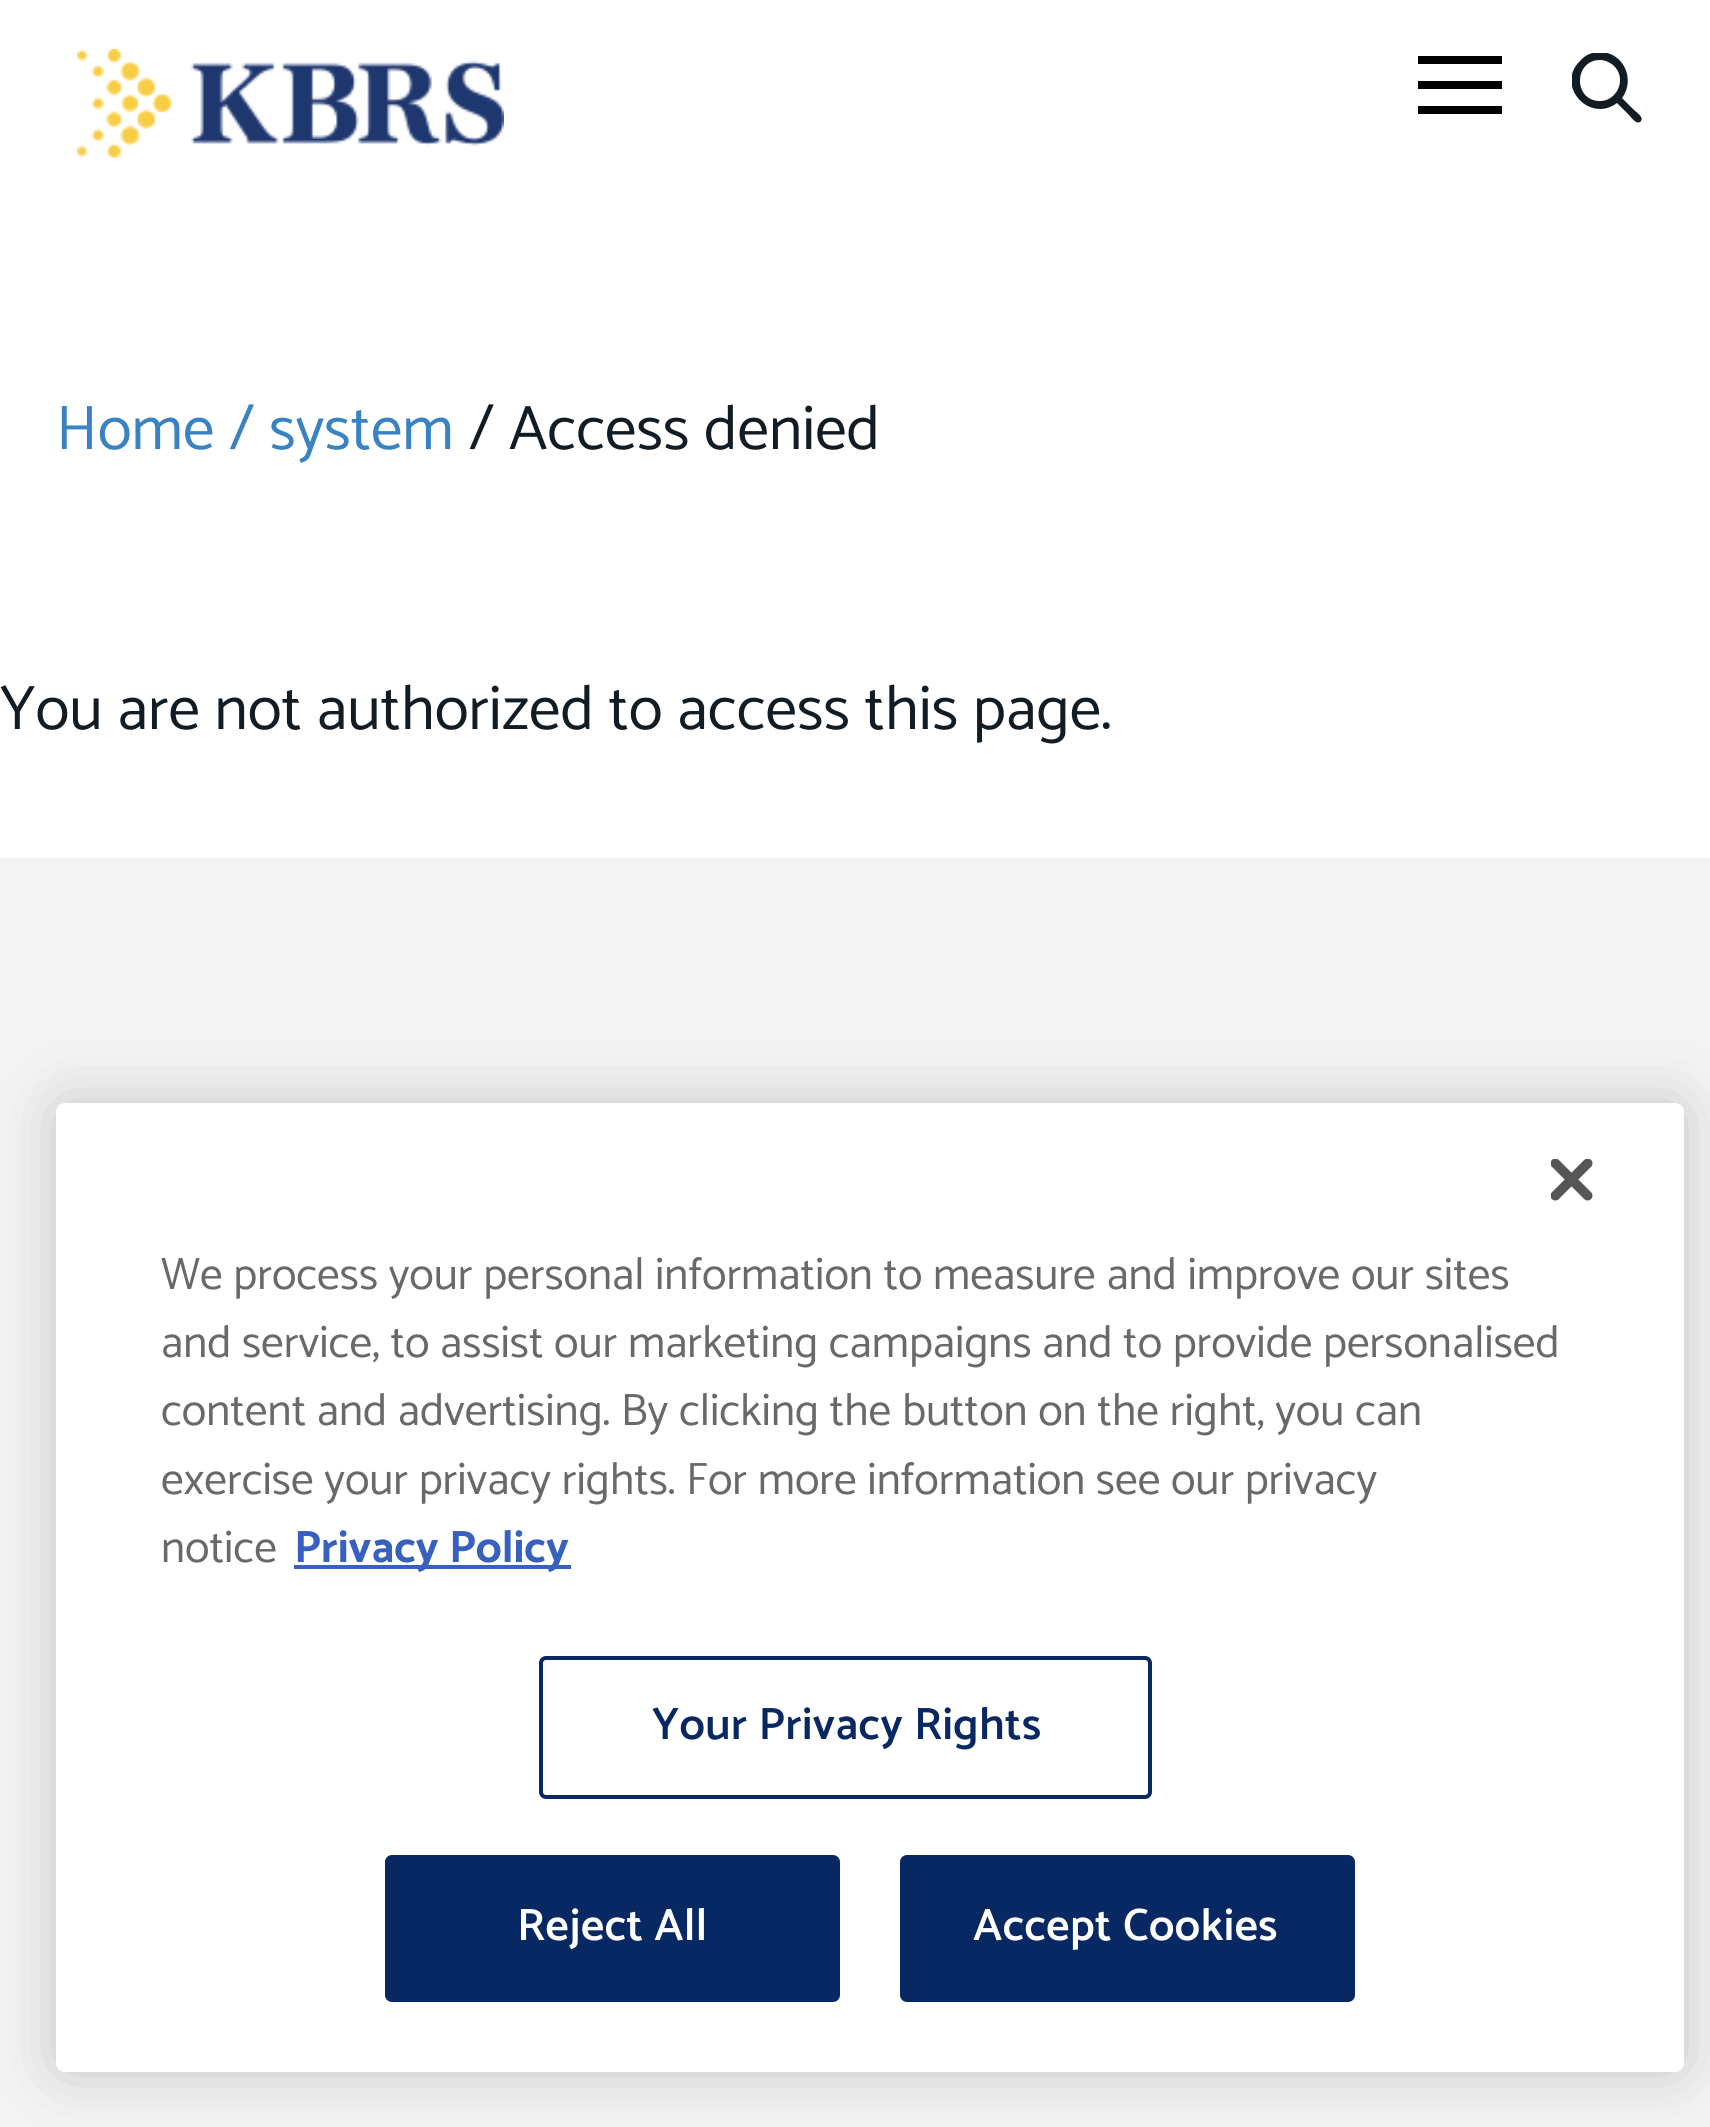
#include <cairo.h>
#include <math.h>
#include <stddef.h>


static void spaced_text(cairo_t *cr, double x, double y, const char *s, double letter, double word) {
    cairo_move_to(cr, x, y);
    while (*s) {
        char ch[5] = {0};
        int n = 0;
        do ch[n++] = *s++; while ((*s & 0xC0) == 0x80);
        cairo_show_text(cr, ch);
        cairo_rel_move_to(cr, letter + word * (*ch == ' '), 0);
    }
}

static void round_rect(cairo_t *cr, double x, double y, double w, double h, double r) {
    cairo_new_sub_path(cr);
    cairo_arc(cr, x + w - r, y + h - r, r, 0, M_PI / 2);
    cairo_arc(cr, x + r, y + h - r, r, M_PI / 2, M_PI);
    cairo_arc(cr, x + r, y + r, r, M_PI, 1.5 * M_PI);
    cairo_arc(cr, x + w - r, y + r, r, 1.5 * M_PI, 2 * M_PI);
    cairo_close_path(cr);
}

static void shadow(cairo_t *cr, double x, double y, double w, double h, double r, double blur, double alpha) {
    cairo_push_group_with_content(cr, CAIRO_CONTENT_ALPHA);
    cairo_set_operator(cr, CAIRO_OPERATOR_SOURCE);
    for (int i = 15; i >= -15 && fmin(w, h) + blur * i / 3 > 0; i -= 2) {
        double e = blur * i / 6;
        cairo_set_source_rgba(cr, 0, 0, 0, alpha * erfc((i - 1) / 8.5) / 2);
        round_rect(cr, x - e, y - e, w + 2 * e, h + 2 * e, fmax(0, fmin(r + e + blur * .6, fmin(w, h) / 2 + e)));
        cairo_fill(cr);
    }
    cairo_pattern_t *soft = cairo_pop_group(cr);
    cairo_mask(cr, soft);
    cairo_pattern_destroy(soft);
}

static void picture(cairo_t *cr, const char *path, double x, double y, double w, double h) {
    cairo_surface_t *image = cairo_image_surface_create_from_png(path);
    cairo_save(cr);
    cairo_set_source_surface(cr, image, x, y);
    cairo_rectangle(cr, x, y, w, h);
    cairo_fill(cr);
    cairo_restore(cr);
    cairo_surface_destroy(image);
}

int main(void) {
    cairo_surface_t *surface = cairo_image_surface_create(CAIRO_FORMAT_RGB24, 1710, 2127);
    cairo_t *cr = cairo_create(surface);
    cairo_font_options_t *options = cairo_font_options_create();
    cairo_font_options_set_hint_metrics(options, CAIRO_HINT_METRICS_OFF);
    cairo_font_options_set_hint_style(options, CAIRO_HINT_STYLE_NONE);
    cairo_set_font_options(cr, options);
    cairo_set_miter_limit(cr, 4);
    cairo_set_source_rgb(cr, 1, 1, 1);
    cairo_paint(cr);
    picture(cr, "img1.png", 77, 49, 427, 109);
    cairo_set_source_rgb(cr, 0, 0, 0);
    cairo_rectangle(cr, 1418, 56, 84, 8);
    cairo_fill(cr);
    cairo_rectangle(cr, 1418, 81, 84, 8);
    cairo_fill(cr);
    cairo_rectangle(cr, 1418, 106, 84, 8);
    cairo_fill(cr);
    cairo_save(cr);
    cairo_rectangle(cr, 1572, 53, 70, 70);
    cairo_clip(cr);
    cairo_set_source_rgb(cr, 0.067, 0.11, 0.141);
    cairo_new_path(cr);
    cairo_move_to(cr, 1600, 52);
    cairo_curve_to(cr, 1592, 52, 1585, 55, 1580, 61);
    cairo_curve_to(cr, 1555, 85, 1589, 124, 1617, 103);
    cairo_line_to(cr, 1629, 115);
    cairo_curve_to(cr, 1631, 117, 1637, 126, 1641, 121);
    cairo_curve_to(cr, 1644, 117, 1636, 112, 1634, 110);
    cairo_line_to(cr, 1622, 98);
    cairo_curve_to(cr, 1636, 79, 1623, 52, 1600, 52);
    cairo_close_path(cr);
    cairo_move_to(cr, 1600, 60);
    cairo_curve_to(cr, 1605, 60, 1609, 62, 1613, 65);
    cairo_curve_to(cr, 1628, 78, 1617, 102, 1599, 101);
    cairo_curve_to(cr, 1573, 100, 1574, 60, 1600, 60);
    cairo_close_path(cr);
    cairo_fill(cr);
    cairo_restore(cr);
    cairo_select_font_face(cr, "Catamaran", CAIRO_FONT_SLANT_NORMAL, CAIRO_FONT_WEIGHT_NORMAL);
    cairo_set_font_size(cr, 63);
    cairo_set_source_rgb(cr, 0.224, 0.514, 0.765);
    cairo_move_to(cr, 56, 449);
    cairo_show_text(cr, "Home / system");
    cairo_set_source_rgb(cr, 0.067, 0.11, 0.141);
    cairo_move_to(cr, 469, 449);
    cairo_show_text(cr, "/ Access denied");
    cairo_move_to(cr, 0, 729);
    cairo_show_text(cr, "You are not authorized to access this page.");
    cairo_set_source_rgb(cr, 0.957, 0.957, 0.957);
    cairo_rectangle(cr, 0, 858, 1710, 1269);
    cairo_fill(cr);
    cairo_set_source_rgb(cr, 0, 0, 0);
    shadow(cr, 56, 1103, 1628, 969, 9, 31.5, 0.2);
    cairo_set_source_rgb(cr, 1, 1, 1);
    round_rect(cr, 56, 1103, 1628, 969, 9);
    cairo_fill(cr);
    picture(cr, "img2.png", 1551, 1159, 42, 42);
    cairo_set_font_size(cr, 45.5);
    cairo_set_source_rgb(cr, 0.412, 0.412, 0.412);
    cairo_move_to(cr, 161, 1289);
    cairo_show_text(cr, "We process your personal information to measure and improve our sites");
    cairo_move_to(cr, 161, 1357);
    cairo_show_text(cr, "and service, to assist our marketing campaigns and to provide personalised");
    cairo_move_to(cr, 161, 1425);
    cairo_show_text(cr, "content and advertising. By clicking the button on the right, you can");
    cairo_move_to(cr, 161, 1494);
    cairo_show_text(cr, "exercise your privacy rights. For more information see our privacy");
    cairo_move_to(cr, 161, 1562);
    cairo_show_text(cr, "notice");
    cairo_set_source_rgb(cr, 0.22, 0.376, 0.745);
    cairo_rectangle(cr, 294, 1565, 277, 4);
    cairo_fill(cr);
    cairo_select_font_face(cr, "Catamaran", CAIRO_FONT_SLANT_NORMAL, CAIRO_FONT_WEIGHT_BOLD);
    cairo_move_to(cr, 294, 1562);
    cairo_show_text(cr, "Privacy Policy");
    round_rect(cr, 541, 1658, 609, 139, 5);
    cairo_set_source_rgb(cr, 0.031, 0.157, 0.384);
    cairo_set_line_width(cr, 4);
    cairo_stroke(cr);
    cairo_select_font_face(cr, "Catamaran SemiBold", CAIRO_FONT_SLANT_NORMAL, CAIRO_FONT_WEIGHT_NORMAL);
    spaced_text(cr, 652, 1739, "Your Privacy Rights", 0.5, 0);
    round_rect(cr, 387, 1857, 451, 143, 5);
    cairo_fill_preserve(cr);
    cairo_stroke(cr);
    cairo_set_source_rgb(cr, 1, 1, 1);
    spaced_text(cr, 517, 1940, "Reject All", 0.5, 0);
    cairo_set_source_rgb(cr, 0.031, 0.157, 0.384);
    round_rect(cr, 902, 1857, 451, 143, 5);
    cairo_fill_preserve(cr);
    cairo_stroke(cr);
    cairo_set_source_rgb(cr, 1, 1, 1);
    spaced_text(cr, 973, 1940, "Accept Cookies", 0.5, 0);
    cairo_surface_write_to_png(surface, "page.png");
    cairo_font_options_destroy(options);
    cairo_destroy(cr);
    cairo_surface_destroy(surface);
    return 0;
}
